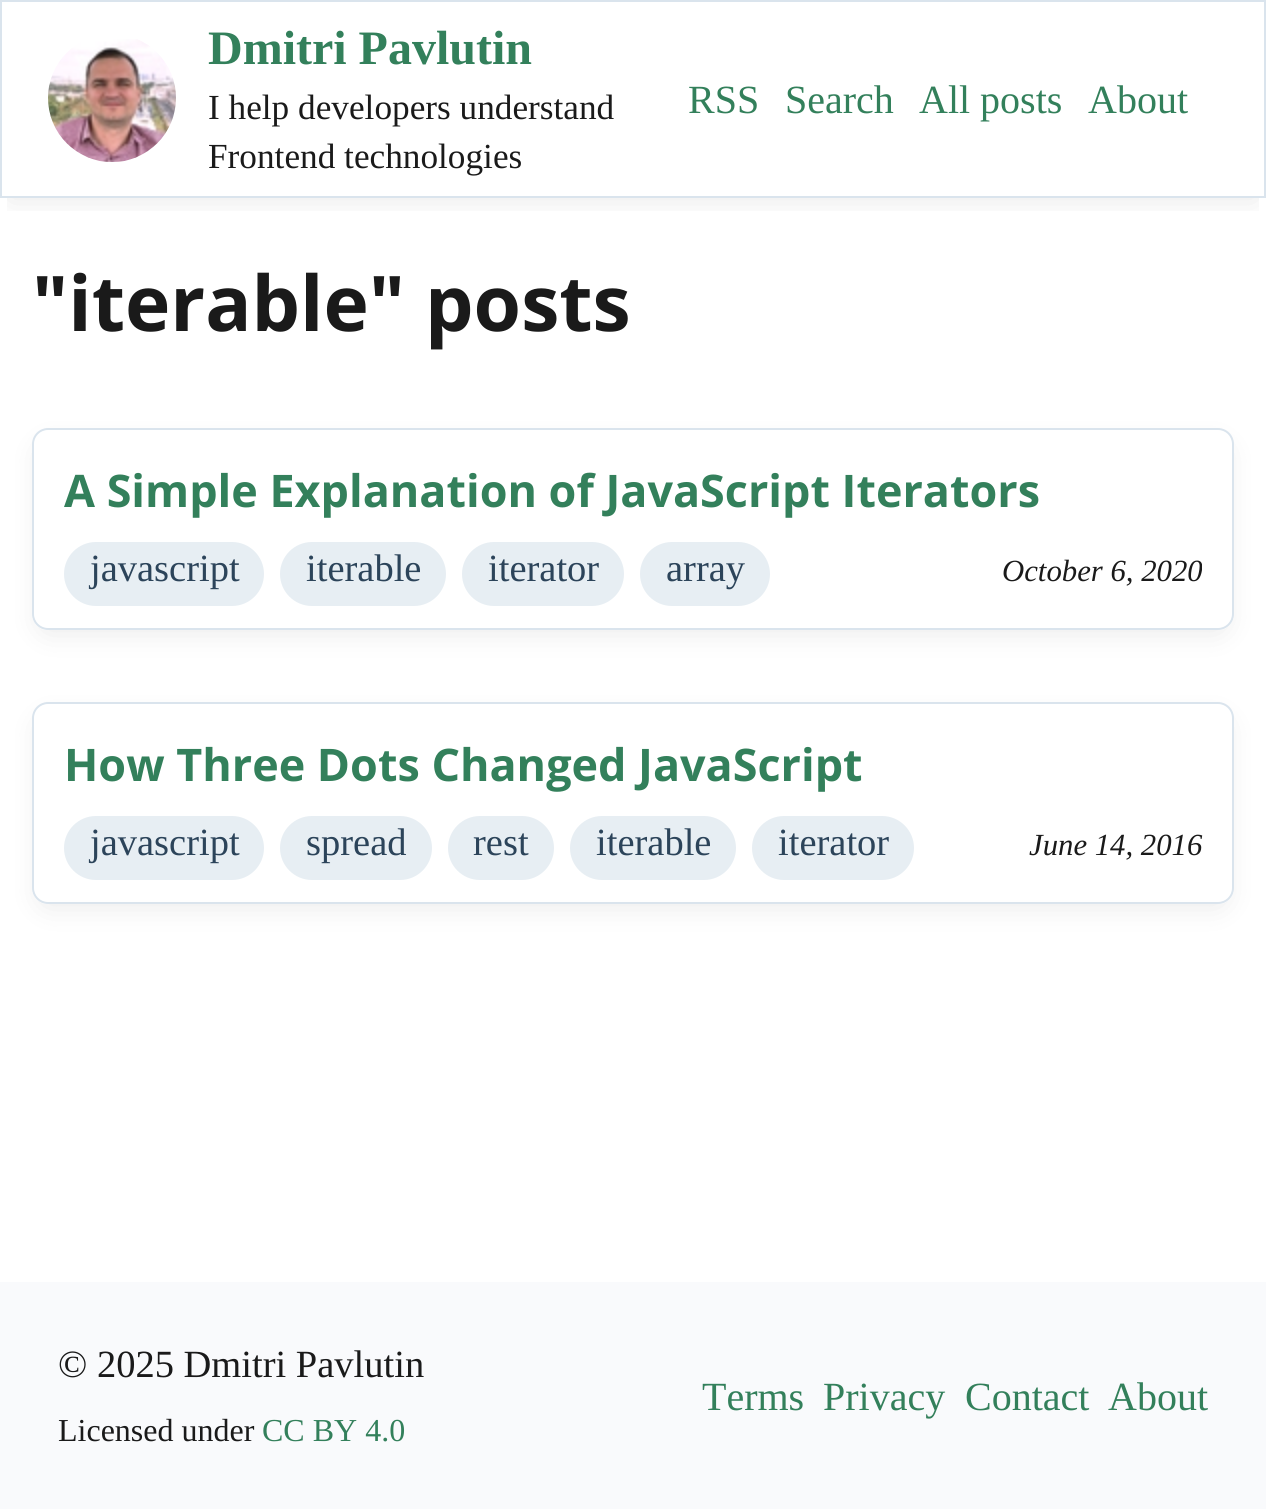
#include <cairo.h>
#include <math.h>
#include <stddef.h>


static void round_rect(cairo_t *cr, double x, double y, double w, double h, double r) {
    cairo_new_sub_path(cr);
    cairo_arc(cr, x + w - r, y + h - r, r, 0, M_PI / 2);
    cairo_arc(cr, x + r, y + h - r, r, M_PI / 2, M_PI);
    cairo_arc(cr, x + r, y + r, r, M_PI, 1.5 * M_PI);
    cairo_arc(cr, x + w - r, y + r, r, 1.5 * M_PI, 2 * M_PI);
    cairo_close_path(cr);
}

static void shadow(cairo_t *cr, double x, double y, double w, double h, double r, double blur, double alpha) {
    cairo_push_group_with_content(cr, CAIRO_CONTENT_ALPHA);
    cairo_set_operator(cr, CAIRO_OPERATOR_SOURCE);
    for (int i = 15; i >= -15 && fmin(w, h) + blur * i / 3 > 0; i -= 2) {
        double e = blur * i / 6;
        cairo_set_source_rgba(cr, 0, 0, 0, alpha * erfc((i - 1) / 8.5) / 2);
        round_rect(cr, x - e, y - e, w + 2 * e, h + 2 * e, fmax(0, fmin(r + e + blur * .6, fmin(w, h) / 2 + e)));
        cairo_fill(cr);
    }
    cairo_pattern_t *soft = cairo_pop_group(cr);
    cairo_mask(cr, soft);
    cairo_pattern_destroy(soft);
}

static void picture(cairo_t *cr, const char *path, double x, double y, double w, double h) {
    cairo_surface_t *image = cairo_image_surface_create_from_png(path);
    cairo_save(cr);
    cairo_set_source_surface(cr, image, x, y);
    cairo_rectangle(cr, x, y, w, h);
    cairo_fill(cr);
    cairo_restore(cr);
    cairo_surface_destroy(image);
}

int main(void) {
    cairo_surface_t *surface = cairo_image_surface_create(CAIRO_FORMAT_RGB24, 1266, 1509);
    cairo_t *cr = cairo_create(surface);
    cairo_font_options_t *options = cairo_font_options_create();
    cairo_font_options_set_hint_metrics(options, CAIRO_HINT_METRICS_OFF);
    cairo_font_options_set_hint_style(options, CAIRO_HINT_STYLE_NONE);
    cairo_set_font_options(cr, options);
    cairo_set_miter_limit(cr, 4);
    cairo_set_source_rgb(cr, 1, 1, 1);
    cairo_paint(cr);
    cairo_save(cr);
    cairo_rectangle(cr, 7, 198, 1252, 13);
    cairo_clip(cr);
    cairo_set_source_rgb(cr, 0, 0, 0);
    shadow(cr, 10, 20, 1246, 178, 0, 15, 0.1);
    cairo_restore(cr);
    cairo_rectangle(cr, 1, 1, 1264, 196);
    cairo_set_source_rgb(cr, 0.855, 0.894, 0.929);
    cairo_stroke(cr);
    picture(cr, "img1.png", 48, 39, 128, 123);
    cairo_select_font_face(cr, "Liberation Serif", CAIRO_FONT_SLANT_NORMAL, CAIRO_FONT_WEIGHT_BOLD);
    cairo_set_font_size(cr, 48);
    cairo_set_source_rgb(cr, 0.2, 0.502, 0.357);
    cairo_move_to(cr, 208, 64);
    cairo_show_text(cr, "Dmitri Pavlutin");
    cairo_select_font_face(cr, "Liberation Serif", CAIRO_FONT_SLANT_NORMAL, CAIRO_FONT_WEIGHT_NORMAL);
    cairo_set_font_size(cr, 35.25);
    cairo_set_source_rgb(cr, 0.102, 0.102, 0.102);
    cairo_move_to(cr, 208, 119);
    cairo_show_text(cr, "I help developers understand");
    cairo_move_to(cr, 208, 168);
    cairo_show_text(cr, "Frontend technologies");
    cairo_set_font_size(cr, 40);
    cairo_set_source_rgb(cr, 0.2, 0.502, 0.357);
    cairo_move_to(cr, 688, 113);
    cairo_show_text(cr, "RSS");
    cairo_move_to(cr, 785, 113);
    cairo_show_text(cr, "Search");
    cairo_move_to(cr, 919, 113);
    cairo_show_text(cr, "All posts");
    cairo_move_to(cr, 1088, 113);
    cairo_show_text(cr, "About");
    cairo_select_font_face(cr, "Open Sans", CAIRO_FONT_SLANT_NORMAL, CAIRO_FONT_WEIGHT_BOLD);
    cairo_set_font_size(cr, 76.75);
    cairo_set_source_rgb(cr, 0.102, 0.102, 0.102);
    cairo_move_to(cr, 32, 331);
    cairo_show_text(cr, "\"iterable\" posts");
    cairo_save(cr);
    cairo_set_fill_rule(cr, CAIRO_FILL_RULE_EVEN_ODD);
    cairo_new_path(cr);
    cairo_move_to(cr, 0, 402);
    cairo_line_to(cr, 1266, 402);
    cairo_line_to(cr, 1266, 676);
    cairo_line_to(cr, 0, 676);
    cairo_close_path(cr);
    cairo_move_to(cr, 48, 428);
    cairo_line_to(cr, 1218, 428);
    cairo_curve_to(cr, 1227, 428, 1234, 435, 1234, 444);
    cairo_line_to(cr, 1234, 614);
    cairo_curve_to(cr, 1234, 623, 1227, 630, 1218, 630);
    cairo_line_to(cr, 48, 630);
    cairo_curve_to(cr, 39, 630, 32, 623, 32, 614);
    cairo_line_to(cr, 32, 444);
    cairo_curve_to(cr, 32, 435, 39, 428, 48, 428);
    cairo_close_path(cr);
    cairo_clip(cr);
    cairo_set_source_rgb(cr, 0, 0, 0);
    shadow(cr, 42, 448, 1182, 182, 6, 15, 0.1);
    cairo_restore(cr);
    round_rect(cr, 33, 429, 1200, 200, 15);
    cairo_set_source_rgb(cr, 0.855, 0.894, 0.929);
    cairo_stroke(cr);
    cairo_set_font_size(cr, 44.9);
    cairo_set_source_rgb(cr, 0.2, 0.502, 0.357);
    cairo_move_to(cr, 64, 507);
    cairo_show_text(cr, "A Simple Explanation of JavaScript Iterators");
    cairo_set_source_rgb(cr, 0.906, 0.933, 0.953);
    round_rect(cr, 64, 542, 200, 64, 32);
    cairo_fill(cr);
    cairo_select_font_face(cr, "Liberation Serif", CAIRO_FONT_SLANT_NORMAL, CAIRO_FONT_WEIGHT_NORMAL);
    cairo_set_font_size(cr, 38.5);
    cairo_set_source_rgb(cr, 0.173, 0.267, 0.353);
    cairo_move_to(cr, 90, 581);
    cairo_show_text(cr, "javascript");
    cairo_set_source_rgb(cr, 0.906, 0.933, 0.953);
    round_rect(cr, 280, 542, 166, 64, 32);
    cairo_fill(cr);
    cairo_set_source_rgb(cr, 0.173, 0.267, 0.353);
    cairo_move_to(cr, 306, 581);
    cairo_show_text(cr, "iterable");
    cairo_set_source_rgb(cr, 0.906, 0.933, 0.953);
    round_rect(cr, 462, 542, 162, 64, 32);
    cairo_fill(cr);
    cairo_set_source_rgb(cr, 0.173, 0.267, 0.353);
    cairo_move_to(cr, 488, 581);
    cairo_show_text(cr, "iterator");
    cairo_set_source_rgb(cr, 0.906, 0.933, 0.953);
    round_rect(cr, 640, 542, 130, 64, 32);
    cairo_fill(cr);
    cairo_set_source_rgb(cr, 0.173, 0.267, 0.353);
    cairo_move_to(cr, 666, 581);
    cairo_show_text(cr, "array");
    cairo_select_font_face(cr, "Liberation Serif", CAIRO_FONT_SLANT_ITALIC, CAIRO_FONT_WEIGHT_NORMAL);
    cairo_set_font_size(cr, 30.75);
    cairo_set_source_rgb(cr, 0.102, 0.102, 0.102);
    cairo_move_to(cr, 1002, 581);
    cairo_show_text(cr, "October 6, 2020");
    cairo_save(cr);
    cairo_set_fill_rule(cr, CAIRO_FILL_RULE_EVEN_ODD);
    cairo_new_path(cr);
    cairo_move_to(cr, 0, 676);
    cairo_line_to(cr, 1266, 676);
    cairo_line_to(cr, 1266, 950);
    cairo_line_to(cr, 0, 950);
    cairo_close_path(cr);
    cairo_move_to(cr, 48, 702);
    cairo_line_to(cr, 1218, 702);
    cairo_curve_to(cr, 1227, 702, 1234, 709, 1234, 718);
    cairo_line_to(cr, 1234, 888);
    cairo_curve_to(cr, 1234, 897, 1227, 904, 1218, 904);
    cairo_line_to(cr, 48, 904);
    cairo_curve_to(cr, 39, 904, 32, 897, 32, 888);
    cairo_line_to(cr, 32, 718);
    cairo_curve_to(cr, 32, 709, 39, 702, 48, 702);
    cairo_close_path(cr);
    cairo_clip(cr);
    cairo_set_source_rgb(cr, 0, 0, 0);
    shadow(cr, 42, 722, 1182, 182, 6, 15, 0.1);
    cairo_restore(cr);
    round_rect(cr, 33, 703, 1200, 200, 15);
    cairo_set_source_rgb(cr, 0.855, 0.894, 0.929);
    cairo_stroke(cr);
    cairo_select_font_face(cr, "Open Sans", CAIRO_FONT_SLANT_NORMAL, CAIRO_FONT_WEIGHT_BOLD);
    cairo_set_font_size(cr, 44.9);
    cairo_set_source_rgb(cr, 0.2, 0.502, 0.357);
    cairo_move_to(cr, 64, 781);
    cairo_show_text(cr, "How Three Dots Changed JavaScript");
    cairo_set_source_rgb(cr, 0.906, 0.933, 0.953);
    round_rect(cr, 64, 816, 200, 64, 32);
    cairo_fill(cr);
    cairo_select_font_face(cr, "Liberation Serif", CAIRO_FONT_SLANT_NORMAL, CAIRO_FONT_WEIGHT_NORMAL);
    cairo_set_font_size(cr, 38.5);
    cairo_set_source_rgb(cr, 0.173, 0.267, 0.353);
    cairo_move_to(cr, 90, 855);
    cairo_show_text(cr, "javascript");
    cairo_set_source_rgb(cr, 0.906, 0.933, 0.953);
    round_rect(cr, 280, 816, 152, 64, 32);
    cairo_fill(cr);
    cairo_set_source_rgb(cr, 0.173, 0.267, 0.353);
    cairo_move_to(cr, 306, 855);
    cairo_show_text(cr, "spread");
    cairo_set_source_rgb(cr, 0.906, 0.933, 0.953);
    round_rect(cr, 448, 816, 106, 64, 32);
    cairo_fill(cr);
    cairo_set_source_rgb(cr, 0.173, 0.267, 0.353);
    cairo_move_to(cr, 473, 855);
    cairo_show_text(cr, "rest");
    cairo_set_source_rgb(cr, 0.906, 0.933, 0.953);
    round_rect(cr, 570, 816, 166, 64, 32);
    cairo_fill(cr);
    cairo_set_source_rgb(cr, 0.173, 0.267, 0.353);
    cairo_move_to(cr, 596, 855);
    cairo_show_text(cr, "iterable");
    cairo_set_source_rgb(cr, 0.906, 0.933, 0.953);
    round_rect(cr, 752, 816, 162, 64, 32);
    cairo_fill(cr);
    cairo_set_source_rgb(cr, 0.173, 0.267, 0.353);
    cairo_move_to(cr, 778, 855);
    cairo_show_text(cr, "iterator");
    cairo_select_font_face(cr, "Liberation Serif", CAIRO_FONT_SLANT_ITALIC, CAIRO_FONT_WEIGHT_NORMAL);
    cairo_set_font_size(cr, 30.75);
    cairo_set_source_rgb(cr, 0.102, 0.102, 0.102);
    cairo_move_to(cr, 1029, 855);
    cairo_show_text(cr, "June 14, 2016");
    cairo_set_source_rgb(cr, 0.973, 0.98, 0.988);
    cairo_rectangle(cr, 0, 1282, 1266, 227);
    cairo_fill(cr);
    cairo_select_font_face(cr, "Liberation Serif", CAIRO_FONT_SLANT_NORMAL, CAIRO_FONT_WEIGHT_NORMAL);
    cairo_set_font_size(cr, 38.5);
    cairo_set_source_rgb(cr, 0.102, 0.102, 0.102);
    cairo_move_to(cr, 58, 1377);
    cairo_show_text(cr, "© 2025 Dmitri Pavlutin");
    cairo_set_font_size(cr, 32);
    cairo_move_to(cr, 58, 1441);
    cairo_show_text(cr, "Licensed under");
    cairo_set_source_rgb(cr, 0.2, 0.502, 0.357);
    cairo_move_to(cr, 262, 1441);
    cairo_show_text(cr, "CC BY 4.0");
    cairo_set_font_size(cr, 40);
    cairo_move_to(cr, 702, 1410);
    cairo_show_text(cr, "Terms");
    cairo_move_to(cr, 823, 1410);
    cairo_show_text(cr, "Privacy");
    cairo_move_to(cr, 965, 1410);
    cairo_show_text(cr, "Contact");
    cairo_move_to(cr, 1108, 1410);
    cairo_show_text(cr, "About");
    cairo_surface_write_to_png(surface, "page.png");
    cairo_font_options_destroy(options);
    cairo_destroy(cr);
    cairo_surface_destroy(surface);
    return 0;
}
